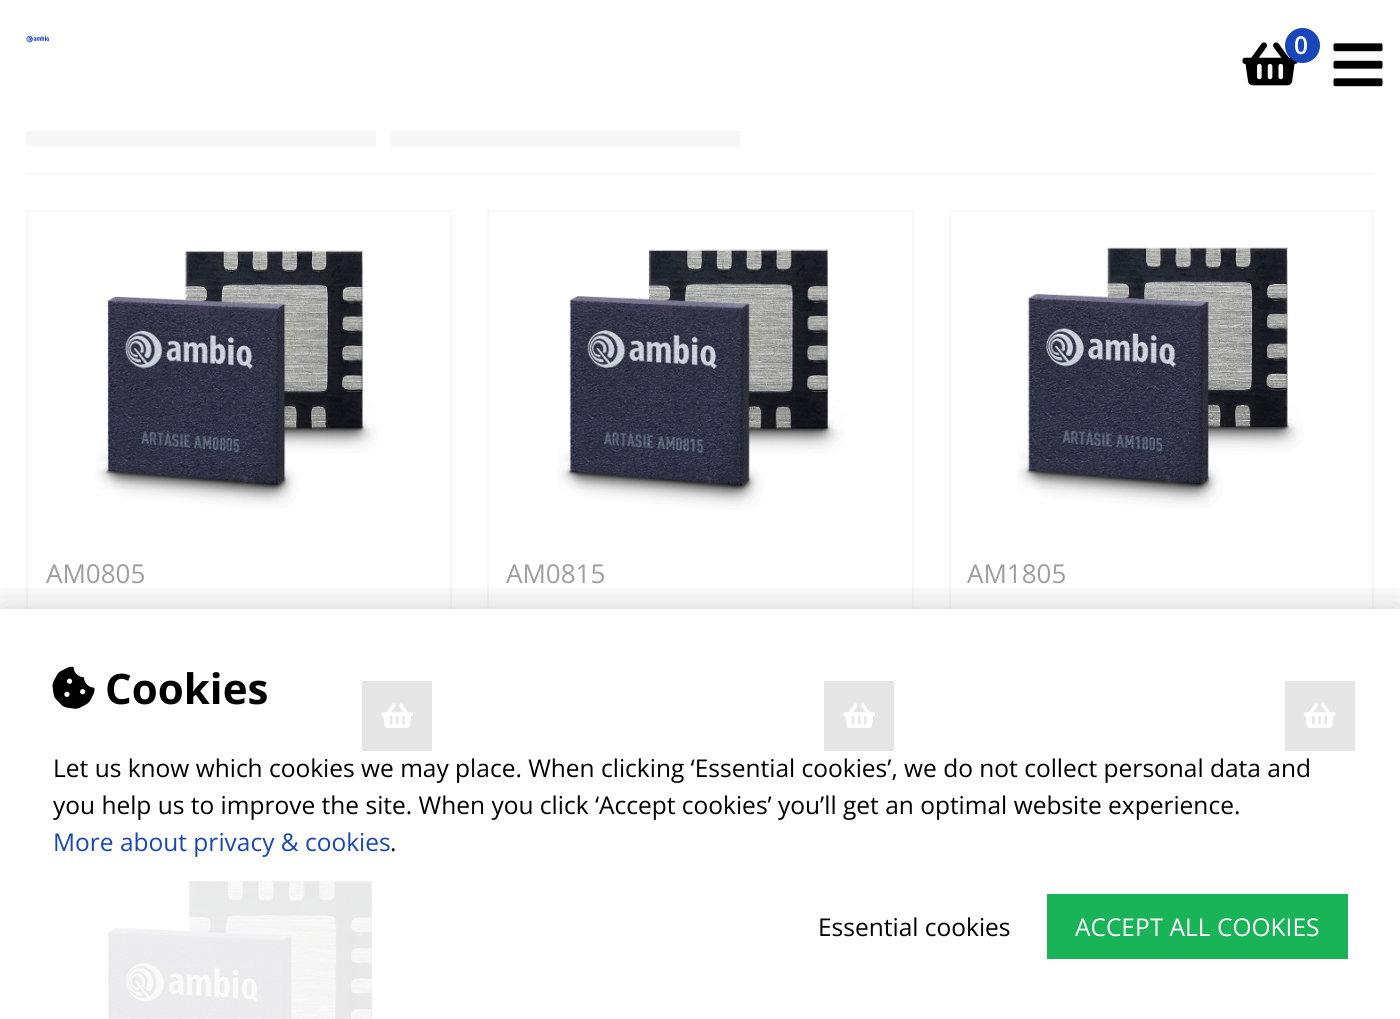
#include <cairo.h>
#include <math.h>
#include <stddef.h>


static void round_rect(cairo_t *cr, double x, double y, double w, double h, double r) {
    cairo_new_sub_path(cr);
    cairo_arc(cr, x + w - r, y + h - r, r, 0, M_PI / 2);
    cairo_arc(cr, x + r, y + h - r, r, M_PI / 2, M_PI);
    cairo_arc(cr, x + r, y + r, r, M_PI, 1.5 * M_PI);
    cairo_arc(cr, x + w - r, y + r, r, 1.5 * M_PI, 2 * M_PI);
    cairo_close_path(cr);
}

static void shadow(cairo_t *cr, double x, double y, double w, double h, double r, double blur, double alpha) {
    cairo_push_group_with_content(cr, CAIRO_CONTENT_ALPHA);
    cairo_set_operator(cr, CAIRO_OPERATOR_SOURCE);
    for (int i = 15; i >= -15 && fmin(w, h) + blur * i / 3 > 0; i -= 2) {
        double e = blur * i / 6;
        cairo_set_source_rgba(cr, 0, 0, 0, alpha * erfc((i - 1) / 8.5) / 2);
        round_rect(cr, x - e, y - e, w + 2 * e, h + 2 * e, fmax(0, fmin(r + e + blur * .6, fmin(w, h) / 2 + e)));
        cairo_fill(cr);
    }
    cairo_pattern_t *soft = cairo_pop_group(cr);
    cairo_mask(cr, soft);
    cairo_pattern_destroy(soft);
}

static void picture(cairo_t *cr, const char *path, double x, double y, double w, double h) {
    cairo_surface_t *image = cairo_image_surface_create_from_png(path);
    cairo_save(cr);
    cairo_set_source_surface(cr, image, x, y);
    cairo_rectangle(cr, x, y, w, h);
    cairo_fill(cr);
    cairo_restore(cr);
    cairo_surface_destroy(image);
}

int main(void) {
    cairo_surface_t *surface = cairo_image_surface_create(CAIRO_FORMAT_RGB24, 1400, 1019);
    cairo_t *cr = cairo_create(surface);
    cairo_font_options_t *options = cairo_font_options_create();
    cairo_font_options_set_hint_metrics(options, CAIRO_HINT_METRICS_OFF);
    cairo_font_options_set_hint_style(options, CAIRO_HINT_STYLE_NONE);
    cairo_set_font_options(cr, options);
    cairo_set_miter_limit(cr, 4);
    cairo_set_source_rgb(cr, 1, 1, 1);
    cairo_paint(cr);
    picture(cr, "img1.png", 26, 35, 23, 8);
    picture(cr, "img2.png", 1333, 43, 50, 44);
    picture(cr, "img3.png", 1242, 42, 56, 44);
    cairo_set_source_rgb(cr, 0.098, 0.278, 0.729);
    cairo_arc(cr, 1302.5, 45.5, 17.5, 0, 2 * M_PI);
    cairo_fill(cr);
    cairo_select_font_face(cr, "Open Sans SemiBold", CAIRO_FONT_SLANT_NORMAL, CAIRO_FONT_WEIGHT_NORMAL);
    cairo_set_font_size(cr, 24.5);
    cairo_set_source_rgb(cr, 1, 1, 1);
    cairo_move_to(cr, 1294, 54);
    cairo_show_text(cr, "0");
    cairo_set_source_rgb(cr, 0.965, 0.965, 0.965);
    cairo_rectangle(cr, 26, 173, 1348, 2);
    cairo_fill(cr);
    cairo_rectangle(cr, 26, 131, 350, 16);
    cairo_fill(cr);
    cairo_rectangle(cr, 390, 131, 350, 16);
    cairo_fill(cr);
    cairo_rectangle(cr, 27, 211, 424, 558);
    cairo_stroke(cr);
    picture(cr, "img4.png", 95, 250, 283, 259);
    cairo_select_font_face(cr, "Open Sans", CAIRO_FONT_SLANT_NORMAL, CAIRO_FONT_WEIGHT_NORMAL);
    cairo_set_font_size(cr, 26);
    cairo_set_source_rgb(cr, 0.62, 0.62, 0.62);
    cairo_move_to(cr, 46, 583);
    cairo_show_text(cr, "AM0805");
    cairo_set_source_rgb(cr, 0, 0, 0);
    cairo_rectangle(cr, 362, 681, 70, 70);
    cairo_fill(cr);
    picture(cr, "img5.png", 381, 703, 32, 25);
    cairo_rectangle(cr, 488, 211, 425, 558);
    cairo_set_source_rgb(cr, 0.965, 0.965, 0.965);
    cairo_stroke(cr);
    picture(cr, "img6.png", 557, 249, 288, 261);
    cairo_set_source_rgb(cr, 0.62, 0.62, 0.62);
    cairo_move_to(cr, 506, 583);
    cairo_show_text(cr, "AM0815");
    cairo_set_source_rgb(cr, 0, 0, 0);
    cairo_rectangle(cr, 824, 681, 70, 70);
    cairo_fill(cr);
    picture(cr, "img5.png", 843, 703, 32, 25);
    cairo_rectangle(cr, 950, 211, 423, 558);
    cairo_set_source_rgb(cr, 0.965, 0.965, 0.965);
    cairo_stroke(cr);
    picture(cr, "img7.png", 1017, 247, 287, 262);
    cairo_set_source_rgb(cr, 0.62, 0.62, 0.62);
    cairo_move_to(cr, 967, 583);
    cairo_show_text(cr, "AM1805");
    cairo_set_source_rgb(cr, 0, 0, 0);
    cairo_rectangle(cr, 1285, 681, 70, 70);
    cairo_fill(cr);
    picture(cr, "img8.png", 1303, 703, 33, 25);
    cairo_rectangle(cr, 27, 841, 424, 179);
    cairo_set_source_rgb(cr, 0.965, 0.965, 0.965);
    cairo_stroke(cr);
    picture(cr, "img9.png", 107, 880, 266, 139);
    cairo_save(cr);
    cairo_rectangle(cr, 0, 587, 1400, 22);
    cairo_clip(cr);
    cairo_set_source_rgb(cr, 0, 0, 0);
    shadow(cr, 0, 609, 1400, 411, 0, 17.5, 0.2);
    cairo_restore(cr);
    cairo_set_source_rgba(cr, 1, 1, 1, 0.9);
    cairo_rectangle(cr, 26, 609, 1348, 410);
    cairo_fill(cr);
    picture(cr, "img10.png", 52, 666, 43, 43);
    cairo_select_font_face(cr, "Open Sans", CAIRO_FONT_SLANT_NORMAL, CAIRO_FONT_WEIGHT_BOLD);
    cairo_set_font_size(cr, 42);
    cairo_set_source_rgb(cr, 0, 0, 0);
    cairo_move_to(cr, 105, 704);
    cairo_show_text(cr, "Cookies");
    cairo_select_font_face(cr, "Open Sans", CAIRO_FONT_SLANT_NORMAL, CAIRO_FONT_WEIGHT_NORMAL);
    cairo_set_font_size(cr, 24.5);
    cairo_move_to(cr, 53, 777);
    cairo_show_text(cr, "Let us know which cookies we may place. When clicking ‘Essential cookies’, we do not collect personal data and");
    cairo_move_to(cr, 53, 814);
    cairo_show_text(cr, "you help us to improve the site. When you click ‘Accept cookies’ you’ll get an optimal website experience.");
    cairo_set_source_rgb(cr, 0.098, 0.278, 0.729);
    cairo_move_to(cr, 53, 851);
    cairo_show_text(cr, "More about privacy & cookies");
    cairo_set_source_rgb(cr, 0, 0, 0);
    cairo_move_to(cr, 390, 851);
    cairo_show_text(cr, ".");
    cairo_move_to(cr, 818, 936);
    cairo_show_text(cr, "Essential cookies");
    cairo_set_source_rgb(cr, 0.098, 0.702, 0.345);
    cairo_rectangle(cr, 1047, 894, 301, 65);
    cairo_fill(cr);
    cairo_set_source_rgb(cr, 1, 1, 1);
    cairo_move_to(cr, 1075, 936);
    cairo_show_text(cr, "ACCEPT ALL COOKIES");
    cairo_surface_write_to_png(surface, "page.png");
    cairo_font_options_destroy(options);
    cairo_destroy(cr);
    cairo_surface_destroy(surface);
    return 0;
}
